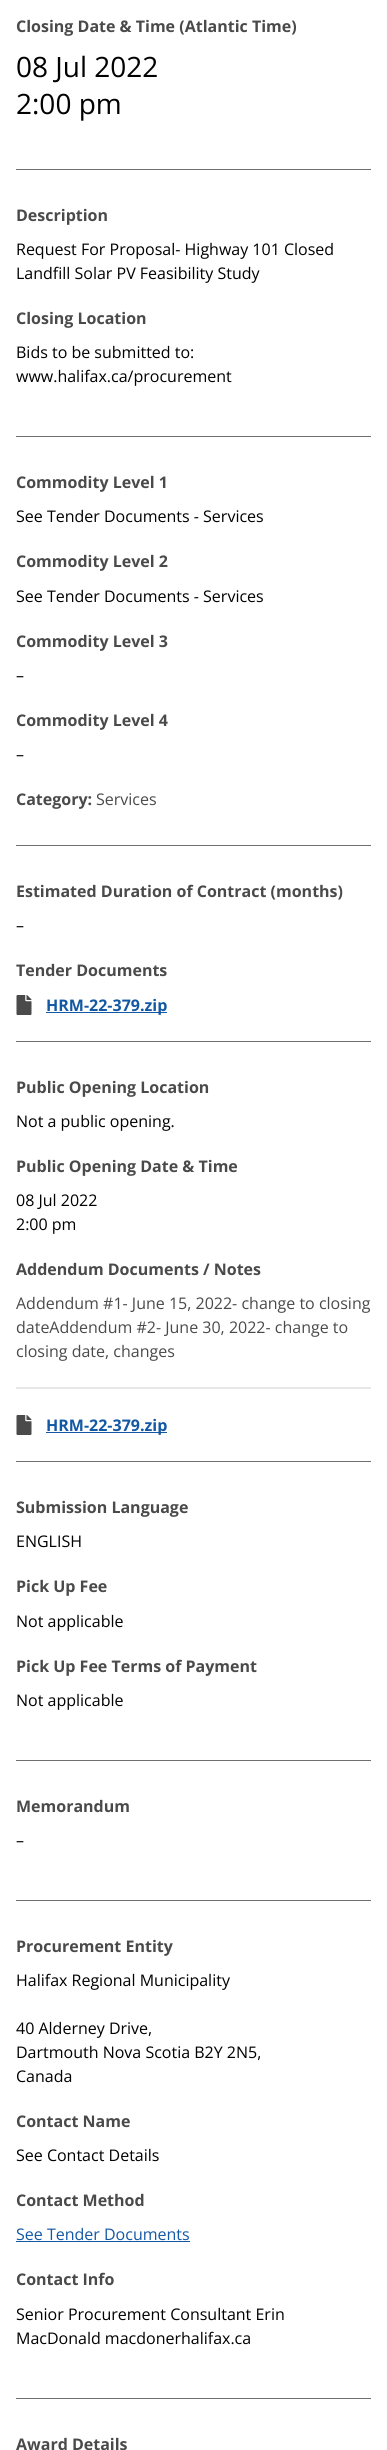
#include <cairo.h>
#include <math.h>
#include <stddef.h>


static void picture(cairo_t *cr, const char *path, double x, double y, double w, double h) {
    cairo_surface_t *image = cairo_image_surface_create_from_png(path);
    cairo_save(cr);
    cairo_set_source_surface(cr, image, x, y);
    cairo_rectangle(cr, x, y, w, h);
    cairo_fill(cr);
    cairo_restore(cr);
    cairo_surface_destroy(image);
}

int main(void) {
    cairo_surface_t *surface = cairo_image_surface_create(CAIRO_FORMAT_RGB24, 387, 2450);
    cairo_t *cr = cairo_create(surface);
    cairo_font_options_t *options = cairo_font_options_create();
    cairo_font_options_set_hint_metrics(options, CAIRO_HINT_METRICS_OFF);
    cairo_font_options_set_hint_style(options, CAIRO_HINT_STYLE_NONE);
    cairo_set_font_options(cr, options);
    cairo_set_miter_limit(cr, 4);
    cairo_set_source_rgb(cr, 1, 1, 1);
    cairo_paint(cr);
    cairo_set_source_rgb(cr, 0.439, 0.439, 0.439);
    cairo_rectangle(cr, 16, 169, 355, 1);
    cairo_fill(cr);
    cairo_select_font_face(cr, "Open Sans", CAIRO_FONT_SLANT_NORMAL, CAIRO_FONT_WEIGHT_BOLD);
    cairo_set_font_size(cr, 16);
    cairo_set_source_rgb(cr, 0.29, 0.29, 0.29);
    cairo_move_to(cr, 16, 32);
    cairo_show_text(cr, "Closing Date & Time (Atlantic Time)");
    cairo_select_font_face(cr, "Open Sans", CAIRO_FONT_SLANT_NORMAL, CAIRO_FONT_WEIGHT_NORMAL);
    cairo_set_font_size(cr, 28);
    cairo_set_source_rgb(cr, 0, 0, 0);
    cairo_move_to(cr, 16, 77);
    cairo_show_text(cr, "08 Jul 2022");
    cairo_move_to(cr, 16, 114);
    cairo_show_text(cr, "2:00 pm");
    cairo_set_source_rgb(cr, 0.439, 0.439, 0.439);
    cairo_rectangle(cr, 16, 436, 355, 1);
    cairo_fill(cr);
    cairo_select_font_face(cr, "Open Sans", CAIRO_FONT_SLANT_NORMAL, CAIRO_FONT_WEIGHT_BOLD);
    cairo_set_font_size(cr, 16);
    cairo_set_source_rgb(cr, 0.29, 0.29, 0.29);
    cairo_move_to(cr, 16, 221);
    cairo_show_text(cr, "Description");
    cairo_select_font_face(cr, "Open Sans", CAIRO_FONT_SLANT_NORMAL, CAIRO_FONT_WEIGHT_NORMAL);
    cairo_set_source_rgb(cr, 0, 0, 0);
    cairo_move_to(cr, 16, 255);
    cairo_show_text(cr, "Request For Proposal- Highway 101 Closed");
    cairo_move_to(cr, 16, 279);
    cairo_show_text(cr, "Landfill Solar PV Feasibility Study");
    cairo_select_font_face(cr, "Open Sans", CAIRO_FONT_SLANT_NORMAL, CAIRO_FONT_WEIGHT_BOLD);
    cairo_set_source_rgb(cr, 0.29, 0.29, 0.29);
    cairo_move_to(cr, 16, 324);
    cairo_show_text(cr, "Closing Location");
    cairo_select_font_face(cr, "Open Sans", CAIRO_FONT_SLANT_NORMAL, CAIRO_FONT_WEIGHT_NORMAL);
    cairo_set_source_rgb(cr, 0, 0, 0);
    cairo_move_to(cr, 16, 358);
    cairo_show_text(cr, "Bids to be submitted to:");
    cairo_move_to(cr, 16, 382);
    cairo_show_text(cr, "www.halifax.ca/procurement");
    cairo_set_source_rgb(cr, 0.439, 0.439, 0.439);
    cairo_rectangle(cr, 16, 845, 355, 1);
    cairo_fill(cr);
    cairo_select_font_face(cr, "Open Sans", CAIRO_FONT_SLANT_NORMAL, CAIRO_FONT_WEIGHT_BOLD);
    cairo_set_source_rgb(cr, 0.29, 0.29, 0.29);
    cairo_move_to(cr, 16, 488);
    cairo_show_text(cr, "Commodity Level 1");
    cairo_select_font_face(cr, "Open Sans", CAIRO_FONT_SLANT_NORMAL, CAIRO_FONT_WEIGHT_NORMAL);
    cairo_set_source_rgb(cr, 0, 0, 0);
    cairo_move_to(cr, 16, 522);
    cairo_show_text(cr, "See Tender Documents - Services");
    cairo_select_font_face(cr, "Open Sans", CAIRO_FONT_SLANT_NORMAL, CAIRO_FONT_WEIGHT_BOLD);
    cairo_set_source_rgb(cr, 0.29, 0.29, 0.29);
    cairo_move_to(cr, 16, 567);
    cairo_show_text(cr, "Commodity Level 2");
    cairo_select_font_face(cr, "Open Sans", CAIRO_FONT_SLANT_NORMAL, CAIRO_FONT_WEIGHT_NORMAL);
    cairo_set_source_rgb(cr, 0, 0, 0);
    cairo_move_to(cr, 16, 602);
    cairo_show_text(cr, "See Tender Documents - Services");
    cairo_select_font_face(cr, "Open Sans", CAIRO_FONT_SLANT_NORMAL, CAIRO_FONT_WEIGHT_BOLD);
    cairo_set_source_rgb(cr, 0.29, 0.29, 0.29);
    cairo_move_to(cr, 16, 647);
    cairo_show_text(cr, "Commodity Level 3");
    cairo_select_font_face(cr, "Open Sans", CAIRO_FONT_SLANT_NORMAL, CAIRO_FONT_WEIGHT_NORMAL);
    cairo_set_source_rgb(cr, 0, 0, 0);
    cairo_move_to(cr, 16, 681);
    cairo_show_text(cr, "–");
    cairo_select_font_face(cr, "Open Sans", CAIRO_FONT_SLANT_NORMAL, CAIRO_FONT_WEIGHT_BOLD);
    cairo_set_source_rgb(cr, 0.29, 0.29, 0.29);
    cairo_move_to(cr, 16, 726);
    cairo_show_text(cr, "Commodity Level 4");
    cairo_select_font_face(cr, "Open Sans", CAIRO_FONT_SLANT_NORMAL, CAIRO_FONT_WEIGHT_NORMAL);
    cairo_set_source_rgb(cr, 0, 0, 0);
    cairo_move_to(cr, 16, 760);
    cairo_show_text(cr, "–");
    cairo_select_font_face(cr, "Open Sans", CAIRO_FONT_SLANT_NORMAL, CAIRO_FONT_WEIGHT_BOLD);
    cairo_set_source_rgb(cr, 0.29, 0.29, 0.29);
    cairo_move_to(cr, 16, 805);
    cairo_show_text(cr, "Category:");
    cairo_select_font_face(cr, "Open Sans", CAIRO_FONT_SLANT_NORMAL, CAIRO_FONT_WEIGHT_NORMAL);
    cairo_move_to(cr, 96, 805);
    cairo_show_text(cr, "Services");
    cairo_set_source_rgb(cr, 0.439, 0.439, 0.439);
    cairo_rectangle(cr, 16, 1041, 355, 1);
    cairo_fill(cr);
    cairo_select_font_face(cr, "Open Sans", CAIRO_FONT_SLANT_NORMAL, CAIRO_FONT_WEIGHT_BOLD);
    cairo_set_source_rgb(cr, 0.29, 0.29, 0.29);
    cairo_move_to(cr, 16, 897);
    cairo_show_text(cr, "Estimated Duration of Contract (months)");
    cairo_select_font_face(cr, "Open Sans", CAIRO_FONT_SLANT_NORMAL, CAIRO_FONT_WEIGHT_NORMAL);
    cairo_set_source_rgb(cr, 0, 0, 0);
    cairo_move_to(cr, 16, 931);
    cairo_show_text(cr, "–");
    cairo_select_font_face(cr, "Open Sans", CAIRO_FONT_SLANT_NORMAL, CAIRO_FONT_WEIGHT_BOLD);
    cairo_set_source_rgb(cr, 0.29, 0.29, 0.29);
    cairo_move_to(cr, 16, 976);
    cairo_show_text(cr, "Tender Documents");
    picture(cr, "img1.png", 16, 995, 16, 20);
    cairo_set_source_rgb(cr, 0.075, 0.345, 0.643);
    cairo_rectangle(cr, 46, 1012, 121, 1);
    cairo_fill(cr);
    cairo_move_to(cr, 46, 1011);
    cairo_show_text(cr, "HRM-22-379.zip");
    cairo_set_source_rgb(cr, 0.439, 0.439, 0.439);
    cairo_rectangle(cr, 16, 1461, 355, 1);
    cairo_fill(cr);
    cairo_set_source_rgb(cr, 0.29, 0.29, 0.29);
    cairo_move_to(cr, 16, 1093);
    cairo_show_text(cr, "Public Opening Location");
    cairo_select_font_face(cr, "Open Sans", CAIRO_FONT_SLANT_NORMAL, CAIRO_FONT_WEIGHT_NORMAL);
    cairo_set_source_rgb(cr, 0, 0, 0);
    cairo_move_to(cr, 16, 1127);
    cairo_show_text(cr, "Not a public opening.");
    cairo_select_font_face(cr, "Open Sans", CAIRO_FONT_SLANT_NORMAL, CAIRO_FONT_WEIGHT_BOLD);
    cairo_set_source_rgb(cr, 0.29, 0.29, 0.29);
    cairo_move_to(cr, 16, 1172);
    cairo_show_text(cr, "Public Opening Date & Time");
    cairo_select_font_face(cr, "Open Sans", CAIRO_FONT_SLANT_NORMAL, CAIRO_FONT_WEIGHT_NORMAL);
    cairo_set_source_rgb(cr, 0, 0, 0);
    cairo_move_to(cr, 16, 1206);
    cairo_show_text(cr, "08 Jul 2022");
    cairo_move_to(cr, 16, 1230);
    cairo_show_text(cr, "2:00 pm");
    cairo_select_font_face(cr, "Open Sans", CAIRO_FONT_SLANT_NORMAL, CAIRO_FONT_WEIGHT_BOLD);
    cairo_set_source_rgb(cr, 0.29, 0.29, 0.29);
    cairo_move_to(cr, 16, 1275);
    cairo_show_text(cr, "Addendum Documents / Notes");
    cairo_set_source_rgb(cr, 0.91, 0.91, 0.91);
    cairo_rectangle(cr, 16, 1387, 355, 2);
    cairo_fill(cr);
    cairo_select_font_face(cr, "Open Sans", CAIRO_FONT_SLANT_NORMAL, CAIRO_FONT_WEIGHT_NORMAL);
    cairo_set_source_rgb(cr, 0.29, 0.29, 0.29);
    cairo_move_to(cr, 16, 1309);
    cairo_show_text(cr, "Addendum #1- June 15, 2022- change to closing");
    cairo_move_to(cr, 16, 1333);
    cairo_show_text(cr, "dateAddendum #2- June 30, 2022- change to");
    cairo_move_to(cr, 16, 1357);
    cairo_show_text(cr, "closing date, changes");
    picture(cr, "img1.png", 16, 1415, 16, 20);
    cairo_set_source_rgb(cr, 0.075, 0.345, 0.643);
    cairo_rectangle(cr, 46, 1432, 121, 1);
    cairo_fill(cr);
    cairo_select_font_face(cr, "Open Sans", CAIRO_FONT_SLANT_NORMAL, CAIRO_FONT_WEIGHT_BOLD);
    cairo_move_to(cr, 46, 1431);
    cairo_show_text(cr, "HRM-22-379.zip");
    cairo_set_source_rgb(cr, 0.439, 0.439, 0.439);
    cairo_rectangle(cr, 16, 1760, 355, 1);
    cairo_fill(cr);
    cairo_set_source_rgb(cr, 0.29, 0.29, 0.29);
    cairo_move_to(cr, 16, 1513);
    cairo_show_text(cr, "Submission Language");
    cairo_select_font_face(cr, "Open Sans", CAIRO_FONT_SLANT_NORMAL, CAIRO_FONT_WEIGHT_NORMAL);
    cairo_set_source_rgb(cr, 0, 0, 0);
    cairo_move_to(cr, 16, 1547);
    cairo_show_text(cr, "ENGLISH");
    cairo_select_font_face(cr, "Open Sans", CAIRO_FONT_SLANT_NORMAL, CAIRO_FONT_WEIGHT_BOLD);
    cairo_set_source_rgb(cr, 0.29, 0.29, 0.29);
    cairo_move_to(cr, 16, 1592);
    cairo_show_text(cr, "Pick Up Fee");
    cairo_select_font_face(cr, "Open Sans", CAIRO_FONT_SLANT_NORMAL, CAIRO_FONT_WEIGHT_NORMAL);
    cairo_set_source_rgb(cr, 0, 0, 0);
    cairo_move_to(cr, 16, 1627);
    cairo_show_text(cr, "Not applicable");
    cairo_select_font_face(cr, "Open Sans", CAIRO_FONT_SLANT_NORMAL, CAIRO_FONT_WEIGHT_BOLD);
    cairo_set_source_rgb(cr, 0.29, 0.29, 0.29);
    cairo_move_to(cr, 16, 1672);
    cairo_show_text(cr, "Pick Up Fee Terms of Payment");
    cairo_select_font_face(cr, "Open Sans", CAIRO_FONT_SLANT_NORMAL, CAIRO_FONT_WEIGHT_NORMAL);
    cairo_set_source_rgb(cr, 0, 0, 0);
    cairo_move_to(cr, 16, 1706);
    cairo_show_text(cr, "Not applicable");
    cairo_set_source_rgb(cr, 0.439, 0.439, 0.439);
    cairo_rectangle(cr, 16, 1900, 355, 1);
    cairo_fill(cr);
    cairo_select_font_face(cr, "Open Sans", CAIRO_FONT_SLANT_NORMAL, CAIRO_FONT_WEIGHT_BOLD);
    cairo_set_source_rgb(cr, 0.29, 0.29, 0.29);
    cairo_move_to(cr, 16, 1812);
    cairo_show_text(cr, "Memorandum");
    cairo_select_font_face(cr, "Open Sans", CAIRO_FONT_SLANT_NORMAL, CAIRO_FONT_WEIGHT_NORMAL);
    cairo_set_source_rgb(cr, 0, 0, 0);
    cairo_move_to(cr, 16, 1846);
    cairo_show_text(cr, "–");
    cairo_set_source_rgb(cr, 0.439, 0.439, 0.439);
    cairo_rectangle(cr, 16, 2398, 355, 1);
    cairo_fill(cr);
    cairo_select_font_face(cr, "Open Sans", CAIRO_FONT_SLANT_NORMAL, CAIRO_FONT_WEIGHT_BOLD);
    cairo_set_source_rgb(cr, 0.29, 0.29, 0.29);
    cairo_move_to(cr, 16, 1952);
    cairo_show_text(cr, "Procurement Entity");
    cairo_select_font_face(cr, "Open Sans", CAIRO_FONT_SLANT_NORMAL, CAIRO_FONT_WEIGHT_NORMAL);
    cairo_set_source_rgb(cr, 0, 0, 0);
    cairo_move_to(cr, 16, 1986);
    cairo_show_text(cr, "Halifax Regional Municipality");
    cairo_move_to(cr, 16, 2034);
    cairo_show_text(cr, "40 Alderney Drive,");
    cairo_move_to(cr, 16, 2058);
    cairo_show_text(cr, "Dartmouth Nova Scotia B2Y 2N5,");
    cairo_move_to(cr, 16, 2082);
    cairo_show_text(cr, "Canada");
    cairo_select_font_face(cr, "Open Sans", CAIRO_FONT_SLANT_NORMAL, CAIRO_FONT_WEIGHT_BOLD);
    cairo_set_source_rgb(cr, 0.29, 0.29, 0.29);
    cairo_move_to(cr, 16, 2127);
    cairo_show_text(cr, "Contact Name");
    cairo_select_font_face(cr, "Open Sans", CAIRO_FONT_SLANT_NORMAL, CAIRO_FONT_WEIGHT_NORMAL);
    cairo_set_source_rgb(cr, 0, 0, 0);
    cairo_move_to(cr, 16, 2161);
    cairo_show_text(cr, "See Contact Details");
    cairo_select_font_face(cr, "Open Sans", CAIRO_FONT_SLANT_NORMAL, CAIRO_FONT_WEIGHT_BOLD);
    cairo_set_source_rgb(cr, 0.29, 0.29, 0.29);
    cairo_move_to(cr, 16, 2206);
    cairo_show_text(cr, "Contact Method");
    cairo_select_font_face(cr, "Open Sans", CAIRO_FONT_SLANT_NORMAL, CAIRO_FONT_WEIGHT_NORMAL);
    cairo_set_source_rgb(cr, 0.075, 0.345, 0.643);
    cairo_move_to(cr, 16, 2240);
    cairo_show_text(cr, "See Tender Documents");
    cairo_rectangle(cr, 16, 2241, 174, 1);
    cairo_fill(cr);
    cairo_select_font_face(cr, "Open Sans", CAIRO_FONT_SLANT_NORMAL, CAIRO_FONT_WEIGHT_BOLD);
    cairo_set_source_rgb(cr, 0.29, 0.29, 0.29);
    cairo_move_to(cr, 16, 2285);
    cairo_show_text(cr, "Contact Info");
    cairo_select_font_face(cr, "Open Sans", CAIRO_FONT_SLANT_NORMAL, CAIRO_FONT_WEIGHT_NORMAL);
    cairo_set_source_rgb(cr, 0, 0, 0);
    cairo_move_to(cr, 16, 2320);
    cairo_show_text(cr, "Senior Procurement Consultant Erin");
    cairo_move_to(cr, 16, 2344);
    cairo_show_text(cr, "MacDonald macdonerhalifax.ca");
    cairo_select_font_face(cr, "Open Sans", CAIRO_FONT_SLANT_NORMAL, CAIRO_FONT_WEIGHT_BOLD);
    cairo_set_source_rgb(cr, 0.29, 0.29, 0.29);
    cairo_move_to(cr, 16, 2450);
    cairo_show_text(cr, "Award Details");
    cairo_surface_write_to_png(surface, "page.png");
    cairo_font_options_destroy(options);
    cairo_destroy(cr);
    cairo_surface_destroy(surface);
    return 0;
}
